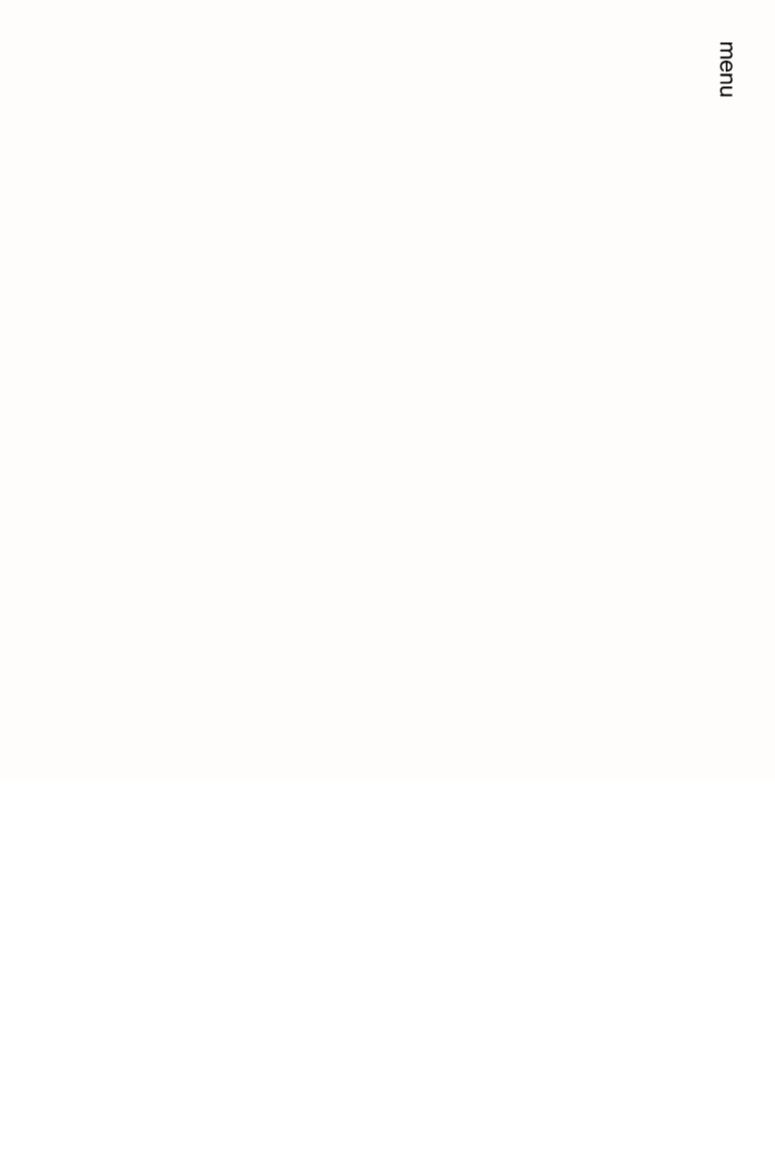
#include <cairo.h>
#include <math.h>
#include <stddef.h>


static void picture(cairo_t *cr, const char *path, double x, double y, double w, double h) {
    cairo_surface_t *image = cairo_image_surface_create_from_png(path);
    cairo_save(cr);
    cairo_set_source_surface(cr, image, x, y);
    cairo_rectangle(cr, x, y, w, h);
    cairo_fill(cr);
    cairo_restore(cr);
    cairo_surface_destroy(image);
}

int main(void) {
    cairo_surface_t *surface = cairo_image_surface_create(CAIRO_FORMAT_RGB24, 775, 1162);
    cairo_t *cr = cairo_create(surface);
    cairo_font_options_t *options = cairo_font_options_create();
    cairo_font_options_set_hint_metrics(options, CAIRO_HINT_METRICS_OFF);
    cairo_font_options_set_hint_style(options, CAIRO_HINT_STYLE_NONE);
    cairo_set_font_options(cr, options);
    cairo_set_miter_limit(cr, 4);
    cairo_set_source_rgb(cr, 1, 1, 1);
    cairo_paint(cr);
    cairo_set_source_rgb(cr, 1, 0.988, 0.988);
    cairo_rectangle(cr, 0, 0, 775, 780);
    cairo_fill(cr);
    picture(cr, "img1.png", 719, 42, 14, 55);
    cairo_surface_write_to_png(surface, "page.png");
    cairo_font_options_destroy(options);
    cairo_destroy(cr);
    cairo_surface_destroy(surface);
    return 0;
}
